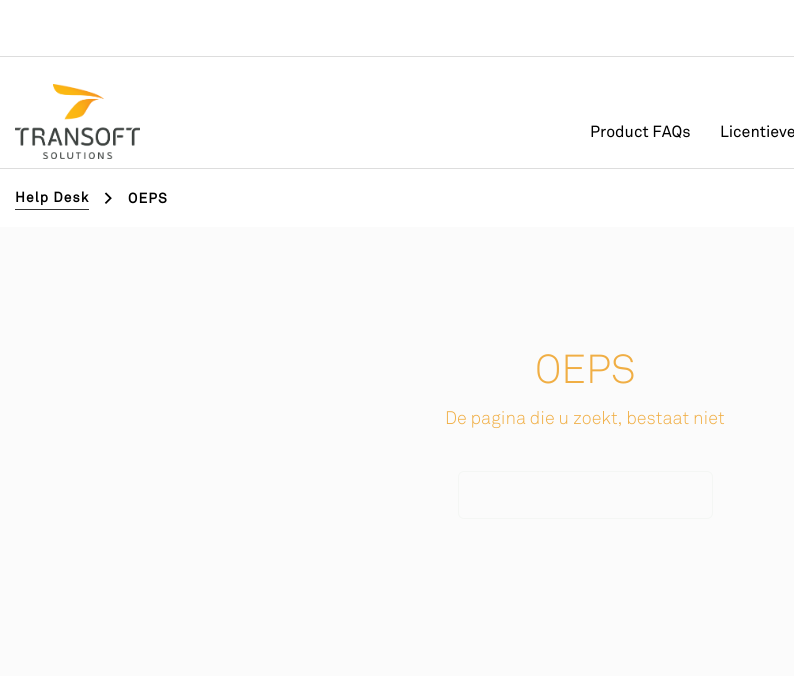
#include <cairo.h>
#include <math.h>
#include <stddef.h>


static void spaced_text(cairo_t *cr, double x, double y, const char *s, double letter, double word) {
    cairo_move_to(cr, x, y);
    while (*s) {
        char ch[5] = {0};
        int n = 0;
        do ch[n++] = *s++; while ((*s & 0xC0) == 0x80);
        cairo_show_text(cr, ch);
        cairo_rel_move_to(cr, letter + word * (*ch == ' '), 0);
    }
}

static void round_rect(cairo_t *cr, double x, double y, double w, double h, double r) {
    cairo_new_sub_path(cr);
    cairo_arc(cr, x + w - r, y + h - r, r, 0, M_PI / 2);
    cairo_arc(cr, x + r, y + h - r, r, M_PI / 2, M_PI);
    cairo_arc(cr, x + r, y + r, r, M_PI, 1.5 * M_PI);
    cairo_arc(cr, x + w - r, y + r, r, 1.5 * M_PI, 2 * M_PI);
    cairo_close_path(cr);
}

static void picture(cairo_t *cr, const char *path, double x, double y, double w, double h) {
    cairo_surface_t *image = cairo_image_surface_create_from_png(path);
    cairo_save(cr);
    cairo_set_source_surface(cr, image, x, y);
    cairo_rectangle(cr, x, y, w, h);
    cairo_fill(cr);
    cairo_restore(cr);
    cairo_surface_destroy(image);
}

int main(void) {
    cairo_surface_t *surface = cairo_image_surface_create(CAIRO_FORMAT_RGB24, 794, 676);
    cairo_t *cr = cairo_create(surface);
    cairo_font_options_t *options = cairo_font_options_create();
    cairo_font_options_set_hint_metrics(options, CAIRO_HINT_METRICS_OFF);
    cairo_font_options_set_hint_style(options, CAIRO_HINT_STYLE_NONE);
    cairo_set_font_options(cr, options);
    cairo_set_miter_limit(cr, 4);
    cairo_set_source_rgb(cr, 0.984, 0.984, 0.984);
    cairo_paint(cr);
    cairo_set_source_rgb(cr, 1, 1, 1);
    cairo_rectangle(cr, 0, 57, 794, 111);
    cairo_fill(cr);
    cairo_rectangle(cr, 0, 0, 794, 56);
    cairo_fill(cr);
    cairo_set_source_rgb(cr, 0.867, 0.867, 0.867);
    cairo_rectangle(cr, 0, 56, 794, 1);
    cairo_fill(cr);
    picture(cr, "img1.png", 15, 84, 125, 75);
    cairo_select_font_face(cr, "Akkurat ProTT", CAIRO_FONT_SLANT_NORMAL, CAIRO_FONT_WEIGHT_NORMAL);
    cairo_set_font_size(cr, 16);
    cairo_set_source_rgb(cr, 0, 0, 0);
    cairo_move_to(cr, 590, 137);
    cairo_show_text(cr, "Product FAQs");
    cairo_move_to(cr, 720, 137);
    cairo_show_text(cr, "Licentieve");
    cairo_set_source_rgb(cr, 1, 1, 1);
    cairo_rectangle(cr, 0, 169, 794, 58);
    cairo_fill(cr);
    cairo_set_source_rgb(cr, 0.867, 0.867, 0.867);
    cairo_rectangle(cr, 0, 168, 794, 1);
    cairo_fill(cr);
    cairo_set_source_rgb(cr, 0.2, 0.2, 0.2);
    cairo_rectangle(cr, 15, 209, 74, 1);
    cairo_fill(cr);
    cairo_select_font_face(cr, "Akkurat ProTT", CAIRO_FONT_SLANT_NORMAL, CAIRO_FONT_WEIGHT_BOLD);
    cairo_set_font_size(cr, 14);
    cairo_set_source_rgb(cr, 0, 0, 0);
    spaced_text(cr, 15, 202, "Help Desk", 1, 0);
    cairo_select_font_face(cr, "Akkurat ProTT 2", CAIRO_FONT_SLANT_NORMAL, CAIRO_FONT_WEIGHT_BOLD);
    cairo_set_font_size(cr, 18);
    spaced_text(cr, 104, 204, ">", 1, 0);
    cairo_select_font_face(cr, "Akkurat ProTT", CAIRO_FONT_SLANT_NORMAL, CAIRO_FONT_WEIGHT_BOLD);
    cairo_set_font_size(cr, 14);
    spaced_text(cr, 128, 203, "OEPS", 1, 0);
    cairo_select_font_face(cr, "Akkurat ProTT Light", CAIRO_FONT_SLANT_NORMAL, CAIRO_FONT_WEIGHT_NORMAL);
    cairo_set_font_size(cr, 40);
    cairo_set_source_rgb(cr, 0.941, 0.682, 0.267);
    cairo_move_to(cr, 535, 383);
    cairo_show_text(cr, "OEPS");
    cairo_set_font_size(cr, 18);
    cairo_move_to(cr, 445, 424);
    cairo_show_text(cr, "De pagina die u zoekt, bestaat niet");
    round_rect(cr, 458.5, 471.5, 254, 47, 5.5);
    cairo_set_source_rgb(cr, 0.957, 0.961, 0.957);
    cairo_set_line_width(cr, 1);
    cairo_stroke(cr);
    cairo_surface_write_to_png(surface, "page.png");
    cairo_font_options_destroy(options);
    cairo_destroy(cr);
    cairo_surface_destroy(surface);
    return 0;
}
